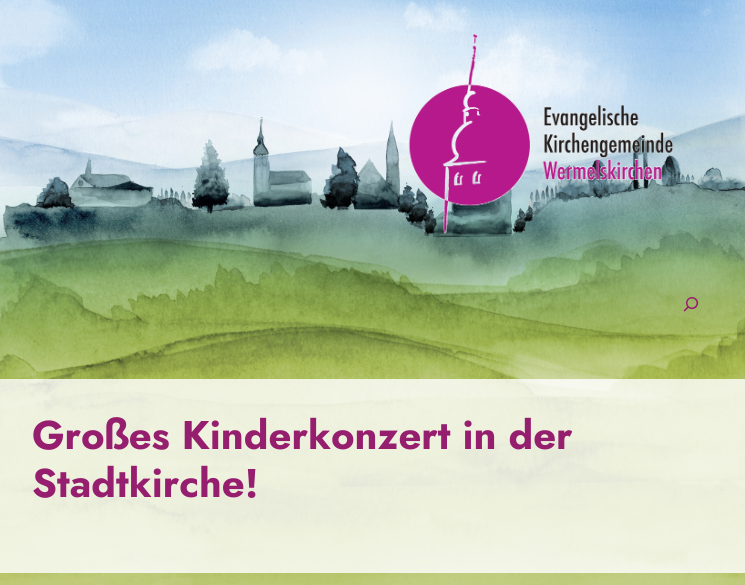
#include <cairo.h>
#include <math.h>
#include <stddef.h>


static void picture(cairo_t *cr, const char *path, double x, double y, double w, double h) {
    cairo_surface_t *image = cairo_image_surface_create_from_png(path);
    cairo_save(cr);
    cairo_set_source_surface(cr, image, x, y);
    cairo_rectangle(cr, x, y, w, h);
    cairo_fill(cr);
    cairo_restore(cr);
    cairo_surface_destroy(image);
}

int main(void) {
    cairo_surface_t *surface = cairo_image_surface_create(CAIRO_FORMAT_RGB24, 745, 585);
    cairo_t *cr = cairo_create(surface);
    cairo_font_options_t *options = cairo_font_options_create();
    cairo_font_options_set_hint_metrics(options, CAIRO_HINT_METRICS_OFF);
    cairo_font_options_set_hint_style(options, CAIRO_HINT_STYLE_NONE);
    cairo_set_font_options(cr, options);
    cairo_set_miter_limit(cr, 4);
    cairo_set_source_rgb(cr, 1, 1, 1);
    cairo_paint(cr);
    picture(cr, "img1.png", 0, 0, 745, 585);
    picture(cr, "img2.png", 408, 33, 265, 201);
    picture(cr, "img3.png", 683, 297, 16, 15);
    cairo_set_source_rgba(cr, 1, 1, 1, 0.81);
    cairo_rectangle(cr, 0, 379, 745, 194);
    cairo_fill(cr);
    cairo_select_font_face(cr, "Jost", CAIRO_FONT_SLANT_NORMAL, CAIRO_FONT_WEIGHT_BOLD);
    cairo_set_font_size(cr, 40);
    cairo_set_source_rgb(cr, 0.588, 0.118, 0.431);
    cairo_move_to(cr, 32, 449);
    cairo_show_text(cr, "Großes Kinderkonzert in der");
    cairo_move_to(cr, 32, 497);
    cairo_show_text(cr, "Stadtkirche!");
    cairo_surface_write_to_png(surface, "page.png");
    cairo_font_options_destroy(options);
    cairo_destroy(cr);
    cairo_surface_destroy(surface);
    return 0;
}
